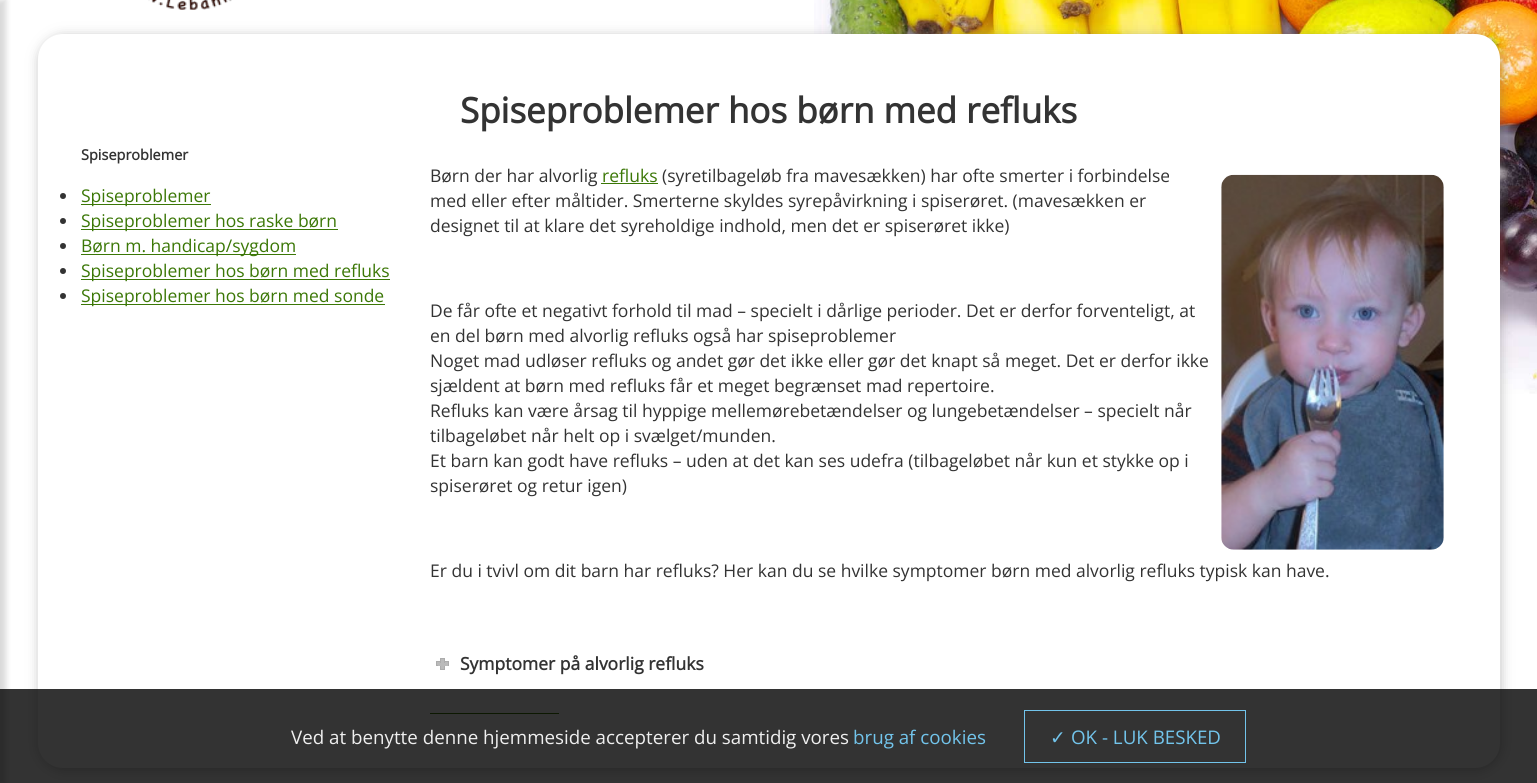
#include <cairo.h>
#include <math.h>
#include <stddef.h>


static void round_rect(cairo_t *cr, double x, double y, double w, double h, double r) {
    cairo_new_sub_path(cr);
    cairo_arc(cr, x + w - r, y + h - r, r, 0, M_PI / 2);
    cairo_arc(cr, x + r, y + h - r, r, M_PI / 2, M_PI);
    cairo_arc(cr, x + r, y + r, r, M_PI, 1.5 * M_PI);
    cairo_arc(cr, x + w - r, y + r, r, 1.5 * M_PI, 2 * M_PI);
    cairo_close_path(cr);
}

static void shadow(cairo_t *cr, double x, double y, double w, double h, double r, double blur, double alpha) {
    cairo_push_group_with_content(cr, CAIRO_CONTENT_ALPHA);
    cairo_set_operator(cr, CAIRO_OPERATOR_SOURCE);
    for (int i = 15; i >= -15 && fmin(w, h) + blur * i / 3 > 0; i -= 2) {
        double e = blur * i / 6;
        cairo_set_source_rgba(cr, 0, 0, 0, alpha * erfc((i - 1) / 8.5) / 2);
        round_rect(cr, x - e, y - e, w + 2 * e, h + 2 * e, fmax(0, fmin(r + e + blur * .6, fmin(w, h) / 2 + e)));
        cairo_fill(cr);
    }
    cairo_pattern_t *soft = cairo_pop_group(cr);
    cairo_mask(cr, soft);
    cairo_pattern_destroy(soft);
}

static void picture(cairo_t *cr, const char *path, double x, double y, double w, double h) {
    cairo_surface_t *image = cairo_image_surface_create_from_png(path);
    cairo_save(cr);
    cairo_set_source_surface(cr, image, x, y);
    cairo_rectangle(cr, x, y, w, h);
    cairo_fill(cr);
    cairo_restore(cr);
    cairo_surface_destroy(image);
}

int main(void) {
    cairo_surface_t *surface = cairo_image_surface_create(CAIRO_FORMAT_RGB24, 1537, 783);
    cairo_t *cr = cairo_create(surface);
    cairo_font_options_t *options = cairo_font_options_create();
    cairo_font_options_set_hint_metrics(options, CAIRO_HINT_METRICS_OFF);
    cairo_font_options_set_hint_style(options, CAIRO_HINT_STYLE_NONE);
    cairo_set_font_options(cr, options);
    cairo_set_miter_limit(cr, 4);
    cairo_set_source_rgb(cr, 1, 1, 1);
    cairo_paint(cr);
    picture(cr, "img1.png", 814, 0, 723, 394);
    cairo_set_source_rgb(cr, 0, 0, 0);
    shadow(cr, -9, 0, 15, 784, 0, 3, 0.15);
    picture(cr, "img2.png", 148, 0, 84, 10);
    cairo_set_source_rgb(cr, 0.482, 0.482, 0.482);
    shadow(cr, 39, 36, 1462, 734, 25, 6, 0.45);
    cairo_set_source_rgb(cr, 1, 1, 1);
    round_rect(cr, 38, 34, 1462, 734, 25);
    cairo_fill(cr);
    cairo_select_font_face(cr, "Open Sans", CAIRO_FONT_SLANT_NORMAL, CAIRO_FONT_WEIGHT_BOLD);
    cairo_set_font_size(cr, 35);
    cairo_set_source_rgb(cr, 0.2, 0.2, 0.2);
    cairo_move_to(cr, 460, 123);
    cairo_show_text(cr, "Spiseproblemer hos børn med refluks");
    cairo_set_font_size(cr, 14.5);
    cairo_move_to(cr, 81, 160);
    cairo_show_text(cr, "Spiseproblemer");
    cairo_new_path(cr);
    cairo_arc(cr, 63, 196, 3, 0, 2 * M_PI);
    cairo_fill(cr);
    cairo_set_source_rgb(cr, 0.231, 0.467, 0.024);
    cairo_rectangle(cr, 81, 204, 130, 1);
    cairo_fill(cr);
    cairo_select_font_face(cr, "Open Sans", CAIRO_FONT_SLANT_NORMAL, CAIRO_FONT_WEIGHT_NORMAL);
    cairo_set_font_size(cr, 17.5);
    cairo_move_to(cr, 81, 202);
    cairo_show_text(cr, "Spiseproblemer");
    cairo_set_source_rgb(cr, 0.2, 0.2, 0.2);
    cairo_new_path(cr);
    cairo_arc(cr, 63, 221, 3, 0, 2 * M_PI);
    cairo_fill(cr);
    cairo_set_source_rgb(cr, 0.231, 0.467, 0.024);
    cairo_rectangle(cr, 81, 229, 257, 1);
    cairo_fill(cr);
    cairo_move_to(cr, 81, 227);
    cairo_show_text(cr, "Spiseproblemer hos raske børn");
    cairo_set_source_rgb(cr, 0.2, 0.2, 0.2);
    cairo_new_path(cr);
    cairo_arc(cr, 63, 246, 3, 0, 2 * M_PI);
    cairo_fill(cr);
    cairo_set_source_rgb(cr, 0.231, 0.467, 0.024);
    cairo_rectangle(cr, 81, 254, 215, 1);
    cairo_fill(cr);
    cairo_move_to(cr, 81, 252);
    cairo_show_text(cr, "Børn m. handicap/sygdom");
    cairo_set_source_rgb(cr, 0.2, 0.2, 0.2);
    cairo_new_path(cr);
    cairo_arc(cr, 63, 271, 3, 0, 2 * M_PI);
    cairo_fill(cr);
    cairo_set_source_rgb(cr, 0.231, 0.467, 0.024);
    cairo_rectangle(cr, 81, 279, 309, 1);
    cairo_fill(cr);
    cairo_move_to(cr, 81, 277);
    cairo_show_text(cr, "Spiseproblemer hos børn med refluks");
    cairo_set_source_rgb(cr, 0.2, 0.2, 0.2);
    cairo_new_path(cr);
    cairo_arc(cr, 63, 296, 3, 0, 2 * M_PI);
    cairo_fill(cr);
    cairo_set_source_rgb(cr, 0.231, 0.467, 0.024);
    cairo_rectangle(cr, 81, 304, 304, 1);
    cairo_fill(cr);
    cairo_move_to(cr, 81, 302);
    cairo_show_text(cr, "Spiseproblemer hos børn med sonde");
    cairo_set_source_rgb(cr, 0.2, 0.2, 0.2);
    cairo_move_to(cr, 430, 182);
    cairo_show_text(cr, "Børn der har alvorlig");
    cairo_set_source_rgb(cr, 0.231, 0.467, 0.024);
    cairo_move_to(cr, 602, 182);
    cairo_show_text(cr, "refluks");
    cairo_rectangle(cr, 601, 183, 57, 1);
    cairo_fill(cr);
    cairo_set_source_rgb(cr, 0.2, 0.2, 0.2);
    cairo_move_to(cr, 662, 182);
    cairo_show_text(cr, "(syretilbageløb fra mavesækken) har ofte smerter i forbindelse");
    cairo_move_to(cr, 430, 207);
    cairo_show_text(cr, "med eller efter måltider. Smerterne skyldes syrepåvirkning i spiserøret. (mavesækken er");
    cairo_move_to(cr, 430, 232);
    cairo_show_text(cr, "designet til at klare det syreholdige indhold, men det er spiserøret ikke)");
    picture(cr, "img3.png", 1221, 174, 223, 376);
    cairo_move_to(cr, 430, 317);
    cairo_show_text(cr, "De får ofte et negativt forhold til mad – specielt i dårlige perioder. Det er derfor forventeligt, at");
    cairo_move_to(cr, 430, 342);
    cairo_show_text(cr, "en del børn med alvorlig refluks også har spiseproblemer");
    cairo_move_to(cr, 430, 367);
    cairo_show_text(cr, "Noget mad udløser refluks og andet gør det ikke eller gør det knapt så meget. Det er derfor ikke");
    cairo_move_to(cr, 430, 392);
    cairo_show_text(cr, "sjældent at børn med refluks får et meget begrænset mad repertoire.");
    cairo_move_to(cr, 430, 417);
    cairo_show_text(cr, "Refluks kan være årsag til hyppige mellemørebetændelser og lungebetændelser – specielt når");
    cairo_move_to(cr, 430, 442);
    cairo_show_text(cr, "tilbageløbet når helt op i svælget/munden.");
    cairo_move_to(cr, 430, 467);
    cairo_show_text(cr, "Et barn kan godt have refluks – uden at det kan ses udefra (tilbageløbet når kun et stykke op i");
    cairo_move_to(cr, 430, 492);
    cairo_show_text(cr, "spiserøret og retur igen)");
    cairo_move_to(cr, 430, 577);
    cairo_show_text(cr, "Er du i tvivl om dit barn har refluks? Her kan du se hvilke symptomer børn med alvorlig refluks typisk kan have.");
    cairo_set_source_rgb(cr, 0.729, 0.729, 0.729);
    cairo_rectangle(cr, 436.5, 661.5, 12, 4);
    cairo_fill_preserve(cr);
    cairo_set_source_rgb(cr, 0.675, 0.675, 0.675);
    cairo_set_line_width(cr, 1);
    cairo_stroke(cr);
    cairo_set_source_rgb(cr, 0.729, 0.729, 0.729);
    cairo_rectangle(cr, 440.5, 658.5, 4, 11);
    cairo_fill_preserve(cr);
    cairo_set_source_rgb(cr, 0.675, 0.675, 0.675);
    cairo_stroke(cr);
    cairo_set_source_rgb(cr, 0.729, 0.729, 0.729);
    cairo_rectangle(cr, 438, 663, 10, 3);
    cairo_fill(cr);
    cairo_select_font_face(cr, "Open Sans", CAIRO_FONT_SLANT_NORMAL, CAIRO_FONT_WEIGHT_BOLD);
    cairo_set_source_rgb(cr, 0.2, 0.2, 0.2);
    cairo_move_to(cr, 460, 670);
    cairo_show_text(cr, "Symptomer på alvorlig refluks");
    cairo_set_source_rgb(cr, 0.231, 0.467, 0.024);
    cairo_rectangle(cr, 430, 713, 129, 1);
    cairo_fill(cr);
    cairo_set_source_rgba(cr, 0, 0, 0, 0.8);
    cairo_rectangle(cr, 0, 689, 1537, 94);
    cairo_fill(cr);
    cairo_select_font_face(cr, "Open Sans", CAIRO_FONT_SLANT_NORMAL, CAIRO_FONT_WEIGHT_NORMAL);
    cairo_set_font_size(cr, 18.75);
    cairo_set_source_rgb(cr, 0.937, 0.937, 0.937);
    cairo_move_to(cr, 291, 744);
    cairo_show_text(cr, "Ved at benytte denne hjemmeside accepterer du samtidig vores");
    cairo_set_source_rgb(cr, 0.447, 0.769, 0.918);
    cairo_move_to(cr, 853, 744);
    cairo_show_text(cr, "brug af cookies");
    cairo_rectangle(cr, 1024.5, 710.5, 221, 52);
    cairo_stroke(cr);
    cairo_select_font_face(cr, "DejaVu Sans", CAIRO_FONT_SLANT_NORMAL, CAIRO_FONT_WEIGHT_NORMAL);
    cairo_move_to(cr, 1050, 744);
    cairo_show_text(cr, "✓");
    cairo_select_font_face(cr, "Open Sans", CAIRO_FONT_SLANT_NORMAL, CAIRO_FONT_WEIGHT_NORMAL);
    cairo_move_to(cr, 1071, 744);
    cairo_show_text(cr, "OK - LUK BESKED");
    cairo_surface_write_to_png(surface, "page.png");
    cairo_font_options_destroy(options);
    cairo_destroy(cr);
    cairo_surface_destroy(surface);
    return 0;
}
